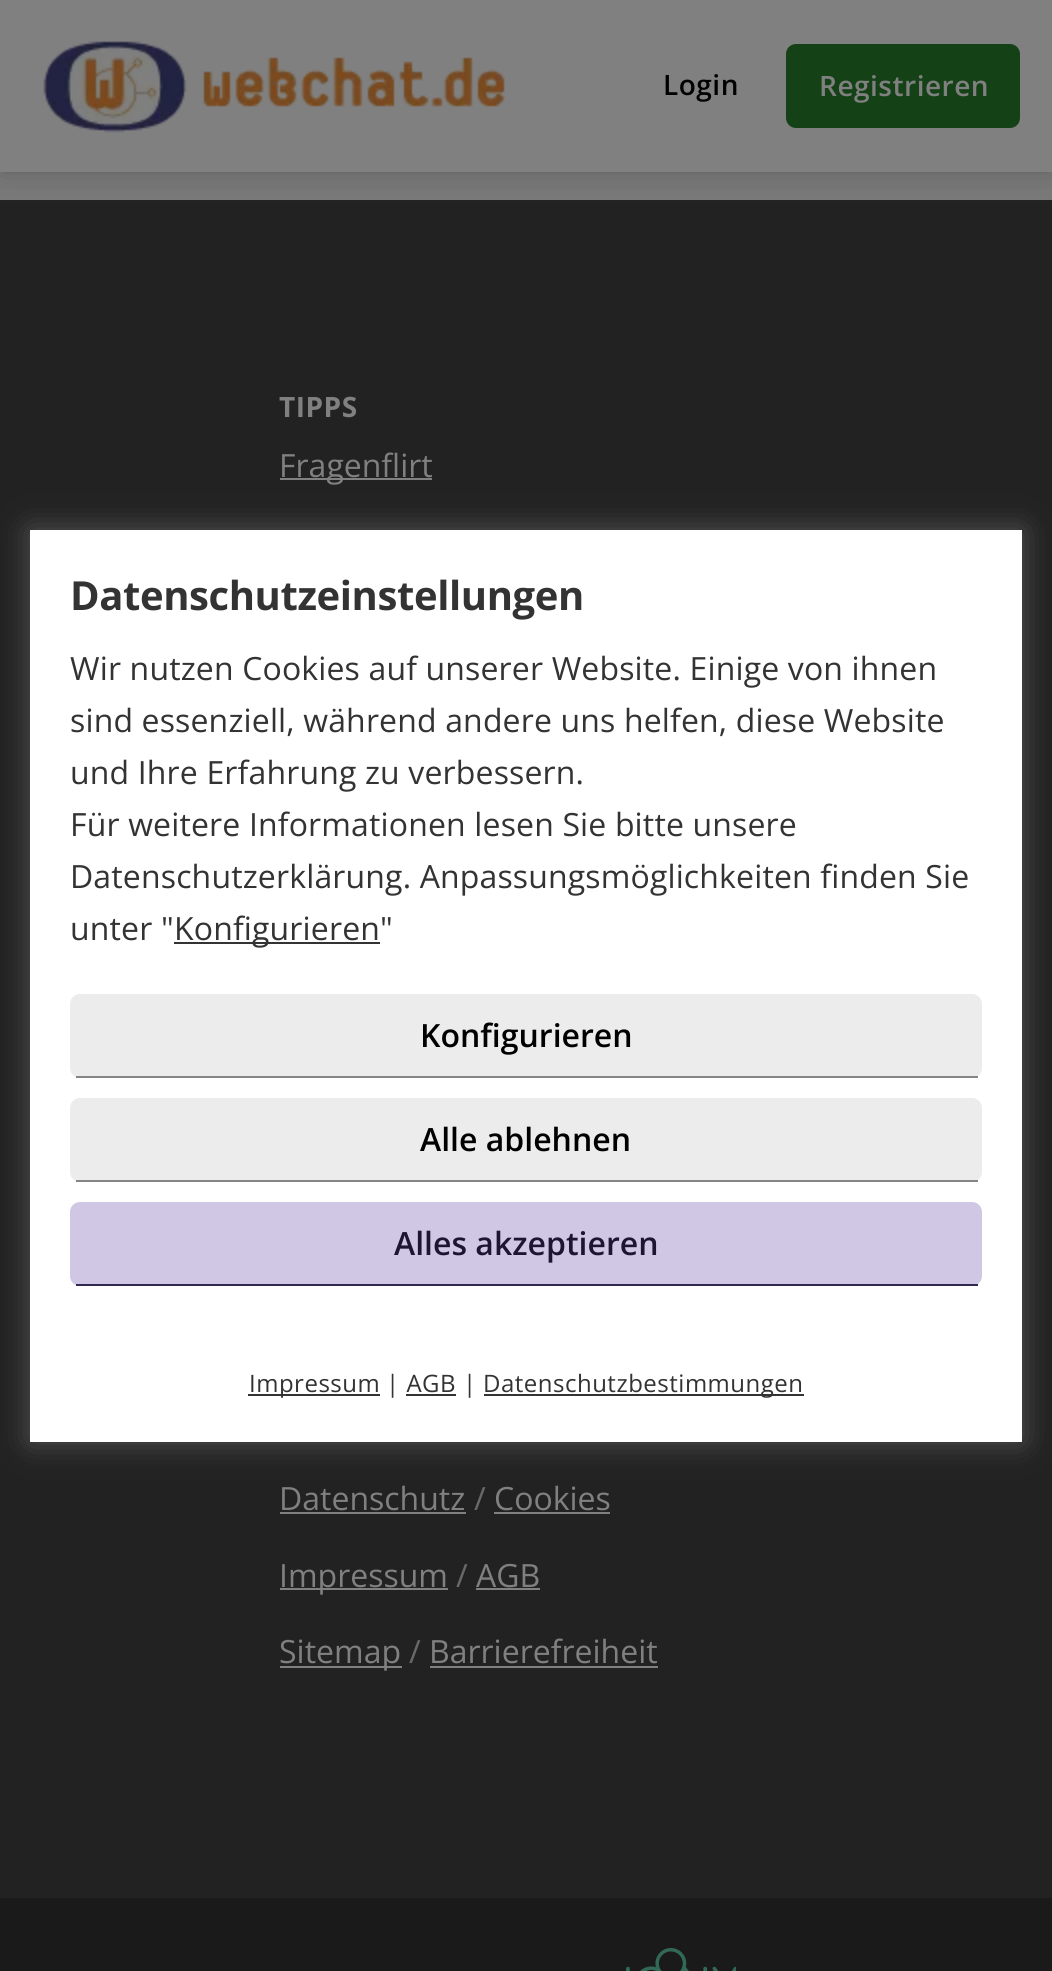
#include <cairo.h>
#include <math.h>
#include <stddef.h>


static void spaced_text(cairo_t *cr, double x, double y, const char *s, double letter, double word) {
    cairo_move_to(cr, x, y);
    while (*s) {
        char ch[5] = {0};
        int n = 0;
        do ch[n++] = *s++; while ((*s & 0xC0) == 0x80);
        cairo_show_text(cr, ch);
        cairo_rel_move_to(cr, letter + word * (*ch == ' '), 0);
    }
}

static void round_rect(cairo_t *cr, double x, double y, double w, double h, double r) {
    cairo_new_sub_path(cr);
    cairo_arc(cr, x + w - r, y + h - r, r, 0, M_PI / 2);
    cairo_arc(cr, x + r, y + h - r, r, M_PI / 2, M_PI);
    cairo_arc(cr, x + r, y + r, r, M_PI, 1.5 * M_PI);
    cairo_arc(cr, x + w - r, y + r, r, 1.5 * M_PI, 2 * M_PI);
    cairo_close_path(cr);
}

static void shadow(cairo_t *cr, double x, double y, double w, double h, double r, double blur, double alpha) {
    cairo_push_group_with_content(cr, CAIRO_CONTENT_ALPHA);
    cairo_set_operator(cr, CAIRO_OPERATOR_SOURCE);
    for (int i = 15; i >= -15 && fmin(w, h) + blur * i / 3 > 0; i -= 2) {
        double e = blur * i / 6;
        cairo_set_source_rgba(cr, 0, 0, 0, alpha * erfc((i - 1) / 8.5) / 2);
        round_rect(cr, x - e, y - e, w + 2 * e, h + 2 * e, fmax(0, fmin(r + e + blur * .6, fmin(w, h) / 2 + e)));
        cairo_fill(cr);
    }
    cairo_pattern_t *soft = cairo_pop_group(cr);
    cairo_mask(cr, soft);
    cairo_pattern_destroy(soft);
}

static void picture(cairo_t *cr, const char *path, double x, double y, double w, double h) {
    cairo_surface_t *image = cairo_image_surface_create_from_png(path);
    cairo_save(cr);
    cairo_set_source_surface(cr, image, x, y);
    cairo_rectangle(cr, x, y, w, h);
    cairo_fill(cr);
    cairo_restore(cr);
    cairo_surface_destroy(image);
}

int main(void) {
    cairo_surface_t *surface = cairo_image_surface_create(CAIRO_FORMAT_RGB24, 1052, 1971);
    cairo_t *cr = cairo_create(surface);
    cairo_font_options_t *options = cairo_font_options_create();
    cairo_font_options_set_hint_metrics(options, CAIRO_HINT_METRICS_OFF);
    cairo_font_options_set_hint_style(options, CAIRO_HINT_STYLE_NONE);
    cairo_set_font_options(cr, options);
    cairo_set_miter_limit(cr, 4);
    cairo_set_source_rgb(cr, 0.133, 0.133, 0.133);
    cairo_paint(cr);
    cairo_set_source_rgb(cr, 0.478, 0.478, 0.478);
    cairo_rectangle(cr, 0, 172, 1052, 28);
    cairo_fill(cr);
    cairo_set_source_rgb(cr, 0.267, 0.267, 0.267);
    shadow(cr, 0, 0, 1052, 172, 0, 15, 0.5);
    cairo_set_source_rgb(cr, 0.502, 0.502, 0.502);
    cairo_rectangle(cr, 0, 0, 1052, 172);
    cairo_fill(cr);
    picture(cr, "img1.png", 43, 41, 462, 92);
    cairo_select_font_face(cr, "Open Sans SemiBold", CAIRO_FONT_SLANT_NORMAL, CAIRO_FONT_WEIGHT_NORMAL);
    cairo_set_font_size(cr, 28);
    cairo_set_source_rgb(cr, 0, 0, 0);
    spaced_text(cr, 663, 95, "Login", 0.5, 0);
    cairo_set_source_rgb(cr, 0.082, 0.259, 0.086);
    round_rect(cr, 786, 44, 234, 84, 10);
    cairo_fill(cr);
    cairo_set_source_rgb(cr, 0.502, 0.502, 0.502);
    spaced_text(cr, 819, 96, "Registrieren", 0.5, 0);
    cairo_select_font_face(cr, "Open Sans", CAIRO_FONT_SLANT_NORMAL, CAIRO_FONT_WEIGHT_BOLD);
    spaced_text(cr, 279, 417, "TIPPS", 0.5, 0);
    cairo_rectangle(cr, 280, 478, 152, 2);
    cairo_fill(cr);
    cairo_select_font_face(cr, "Open Sans", CAIRO_FONT_SLANT_NORMAL, CAIRO_FONT_WEIGHT_NORMAL);
    cairo_set_font_size(cr, 32);
    cairo_move_to(cr, 279, 477);
    cairo_show_text(cr, "Fragenflirt");
    cairo_move_to(cr, 279, 1510);
    cairo_show_text(cr, "Datenschutz");
    cairo_rectangle(cr, 280, 1512, 186, 2);
    cairo_fill(cr);
    cairo_set_source_rgb(cr, 0.412, 0.412, 0.412);
    cairo_move_to(cr, 474, 1510);
    cairo_show_text(cr, "/");
    cairo_set_source_rgb(cr, 0.502, 0.502, 0.502);
    cairo_move_to(cr, 494, 1510);
    cairo_show_text(cr, "Cookies");
    cairo_rectangle(cr, 494, 1512, 116, 2);
    cairo_fill(cr);
    cairo_rectangle(cr, 280, 1588, 168, 2);
    cairo_fill(cr);
    cairo_move_to(cr, 279, 1587);
    cairo_show_text(cr, "Impressum");
    cairo_set_source_rgb(cr, 0.412, 0.412, 0.412);
    cairo_move_to(cr, 456, 1587);
    cairo_show_text(cr, "/");
    cairo_set_source_rgb(cr, 0.502, 0.502, 0.502);
    cairo_move_to(cr, 476, 1587);
    cairo_show_text(cr, "AGB");
    cairo_rectangle(cr, 476, 1588, 64, 2);
    cairo_fill(cr);
    cairo_rectangle(cr, 280, 1666, 122, 2);
    cairo_fill(cr);
    cairo_move_to(cr, 279, 1663);
    cairo_show_text(cr, "Sitemap");
    cairo_set_source_rgb(cr, 0.412, 0.412, 0.412);
    cairo_move_to(cr, 409, 1663);
    cairo_show_text(cr, "/");
    cairo_set_source_rgb(cr, 0.502, 0.502, 0.502);
    cairo_move_to(cr, 429, 1663);
    cairo_show_text(cr, "Barrierefreiheit");
    cairo_rectangle(cr, 430, 1666, 228, 2);
    cairo_fill(cr);
    cairo_set_source_rgb(cr, 0.102, 0.102, 0.102);
    cairo_rectangle(cr, 0, 1898, 1052, 73);
    cairo_fill(cr);
    picture(cr, "img2.png", 626, 1948, 110, 23);
    cairo_set_source_rgb(cr, 0.533, 0.533, 0.533);
    shadow(cr, 30, 530, 992, 912, 0, 15, 0.5);
    cairo_set_source_rgb(cr, 1, 1, 1);
    cairo_rectangle(cr, 30, 530, 992, 912);
    cairo_fill(cr);
    cairo_select_font_face(cr, "Open Sans", CAIRO_FONT_SLANT_NORMAL, CAIRO_FONT_WEIGHT_BOLD);
    cairo_set_font_size(cr, 40);
    cairo_set_source_rgb(cr, 0.2, 0.2, 0.2);
    spaced_text(cr, 70, 610, "Datenschutzeinstellungen", -0.4, 0);
    cairo_select_font_face(cr, "Open Sans", CAIRO_FONT_SLANT_NORMAL, CAIRO_FONT_WEIGHT_NORMAL);
    cairo_set_font_size(cr, 32);
    spaced_text(cr, 70, 680, "Wir nutzen Cookies auf unserer Website. Einige von ihnen", 0.15, 0);
    spaced_text(cr, 70, 732, "sind essenziell, während andere uns helfen, diese Website", 0.15, 0);
    spaced_text(cr, 70, 784, "und Ihre Erfahrung zu verbessern.", 0.15, 0);
    spaced_text(cr, 70, 836, "Für weitere Informationen lesen Sie bitte unsere", 0.15, 0);
    spaced_text(cr, 70, 888, "Datenschutzerklärung. Anpassungsmöglichkeiten finden Sie", 0.15, 0);
    spaced_text(cr, 70, 940, "unter \"", 0.15, 0);
    cairo_rectangle(cr, 174, 942, 206, 2);
    cairo_fill(cr);
    spaced_text(cr, 174, 940, "Konfigurieren", 0.15, 0);
    spaced_text(cr, 380, 940, "\"", 0.15, 0);
    cairo_set_source_rgb(cr, 0.922, 0.922, 0.922);
    round_rect(cr, 70, 994, 912, 84, 10);
    cairo_fill(cr);
    cairo_set_source_rgb(cr, 0.522, 0.522, 0.522);
    cairo_rectangle(cr, 76, 1076, 902, 2);
    cairo_fill(cr);
    cairo_select_font_face(cr, "Open Sans SemiBold", CAIRO_FONT_SLANT_NORMAL, CAIRO_FONT_WEIGHT_NORMAL);
    cairo_set_source_rgb(cr, 0, 0, 0);
    cairo_move_to(cr, 420, 1047);
    cairo_show_text(cr, "Konfigurieren");
    cairo_set_source_rgb(cr, 0.922, 0.922, 0.922);
    round_rect(cr, 70, 1098, 912, 84, 10);
    cairo_fill(cr);
    cairo_set_source_rgb(cr, 0.522, 0.522, 0.522);
    cairo_rectangle(cr, 76, 1180, 902, 2);
    cairo_fill(cr);
    cairo_set_source_rgb(cr, 0, 0, 0);
    cairo_move_to(cr, 420, 1151);
    cairo_show_text(cr, "Alle ablehnen");
    cairo_set_source_rgb(cr, 0.816, 0.78, 0.898);
    round_rect(cr, 70, 1202, 912, 84, 10);
    cairo_fill(cr);
    cairo_set_source_rgb(cr, 0.2, 0.153, 0.329);
    cairo_rectangle(cr, 76, 1284, 902, 2);
    cairo_fill(cr);
    cairo_set_source_rgb(cr, 0.118, 0.086, 0.192);
    cairo_move_to(cr, 394, 1255);
    cairo_show_text(cr, "Alles akzeptieren");
    cairo_set_source_rgb(cr, 0.2, 0.2, 0.2);
    cairo_rectangle(cr, 248, 1394, 132, 2);
    cairo_fill(cr);
    cairo_select_font_face(cr, "Open Sans", CAIRO_FONT_SLANT_NORMAL, CAIRO_FONT_WEIGHT_NORMAL);
    cairo_set_font_size(cr, 24);
    spaced_text(cr, 249, 1392, "Impressum", 0.5, 0);
    spaced_text(cr, 386, 1392, "| AGB", 0.5, 0);
    spaced_text(cr, 463, 1392, "|", 0.5, 0);
    cairo_rectangle(cr, 484, 1394, 320, 2);
    cairo_fill(cr);
    spaced_text(cr, 483, 1392, "Datenschutzbestimmungen", 0.5, 0);
    cairo_rectangle(cr, 406, 1394, 50, 2);
    cairo_fill(cr);
    cairo_surface_write_to_png(surface, "page.png");
    cairo_font_options_destroy(options);
    cairo_destroy(cr);
    cairo_surface_destroy(surface);
    return 0;
}
